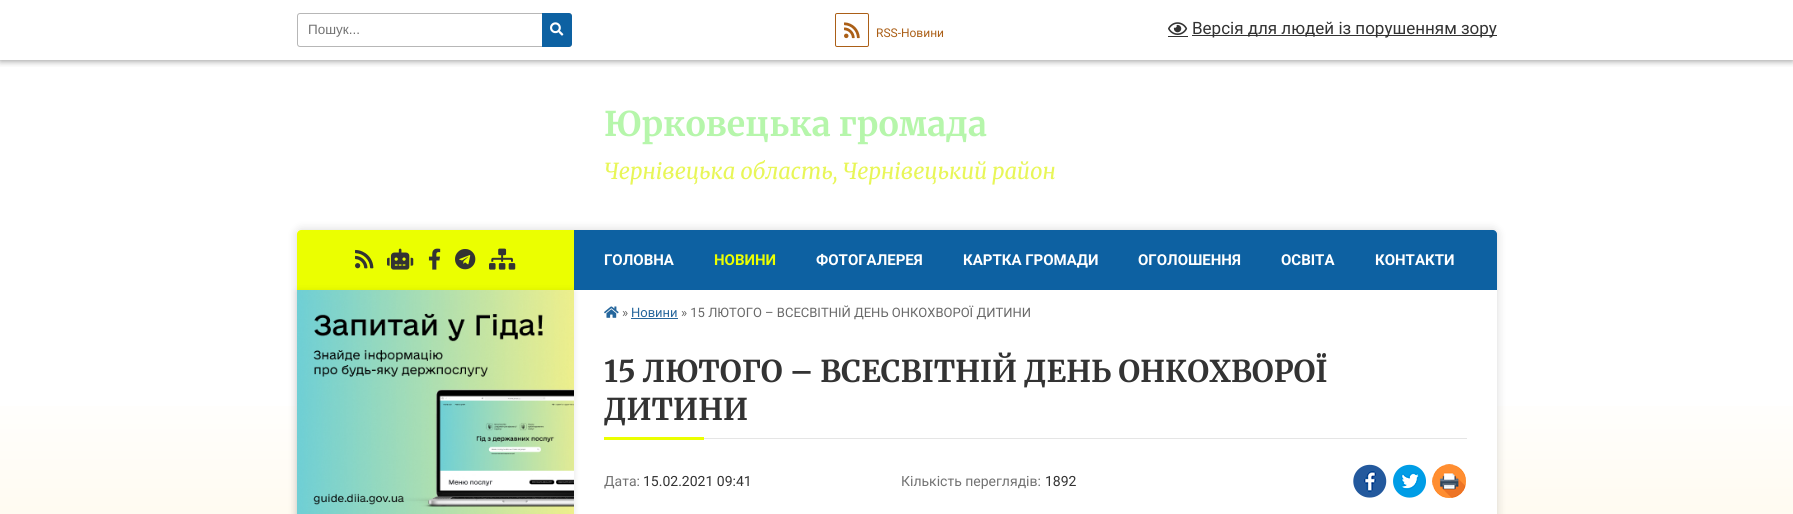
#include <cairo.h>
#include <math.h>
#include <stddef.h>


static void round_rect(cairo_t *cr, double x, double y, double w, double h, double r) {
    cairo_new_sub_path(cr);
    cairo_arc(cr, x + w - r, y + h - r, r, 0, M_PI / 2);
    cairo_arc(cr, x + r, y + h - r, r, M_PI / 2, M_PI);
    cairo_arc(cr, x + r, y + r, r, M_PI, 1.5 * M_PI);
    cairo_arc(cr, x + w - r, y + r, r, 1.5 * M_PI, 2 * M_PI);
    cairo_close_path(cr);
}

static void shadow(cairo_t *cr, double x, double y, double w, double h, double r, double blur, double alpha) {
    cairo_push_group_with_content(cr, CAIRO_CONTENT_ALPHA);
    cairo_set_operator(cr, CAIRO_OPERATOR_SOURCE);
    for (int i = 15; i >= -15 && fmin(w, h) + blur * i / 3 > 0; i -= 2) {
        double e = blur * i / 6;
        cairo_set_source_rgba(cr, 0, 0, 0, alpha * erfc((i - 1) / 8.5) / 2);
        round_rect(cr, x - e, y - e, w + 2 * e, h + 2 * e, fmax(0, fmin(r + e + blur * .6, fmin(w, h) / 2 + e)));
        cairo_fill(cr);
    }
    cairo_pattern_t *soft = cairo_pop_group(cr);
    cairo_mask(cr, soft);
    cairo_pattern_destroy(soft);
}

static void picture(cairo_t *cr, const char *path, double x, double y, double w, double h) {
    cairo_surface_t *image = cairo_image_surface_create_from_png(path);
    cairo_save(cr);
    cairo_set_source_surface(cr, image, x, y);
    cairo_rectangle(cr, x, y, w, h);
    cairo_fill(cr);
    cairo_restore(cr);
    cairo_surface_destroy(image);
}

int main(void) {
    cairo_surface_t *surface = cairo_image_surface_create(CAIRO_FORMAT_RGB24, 1793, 514);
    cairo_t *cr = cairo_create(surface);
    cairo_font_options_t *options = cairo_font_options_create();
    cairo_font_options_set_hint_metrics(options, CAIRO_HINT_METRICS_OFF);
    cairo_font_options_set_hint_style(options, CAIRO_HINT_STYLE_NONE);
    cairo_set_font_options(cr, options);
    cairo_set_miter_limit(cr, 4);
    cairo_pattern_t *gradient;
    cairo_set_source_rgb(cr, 1, 1, 1);
    cairo_paint(cr);
    gradient = cairo_pattern_create_linear(896, 0, 897, 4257);
    cairo_pattern_add_color_stop_rgba(gradient, 0.09, 1, 1, 1, 1);
    cairo_pattern_add_color_stop_rgba(gradient, 0.19, 1, 0.945, 0.816, 1);
    cairo_set_source(cr, gradient);
    cairo_pattern_destroy(gradient);
    cairo_rectangle(cr, 0, 406, 1793, 108);
    cairo_fill(cr);
    cairo_save(cr);
    cairo_rectangle(cr, 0, 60, 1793, 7);
    cairo_clip(cr);
    cairo_set_source_rgb(cr, 0, 0, 0);
    shadow(cr, 0, 1, 1793, 60, 0, 3.5, 0.4);
    cairo_restore(cr);
    round_rect(cr, 297.5, 13.5, 274, 33, 2.5);
    cairo_set_source_rgb(cr, 0.718, 0.718, 0.718);
    cairo_set_line_width(cr, 1);
    cairo_stroke(cr);
    cairo_select_font_face(cr, "Liberation Sans", CAIRO_FONT_SLANT_NORMAL, CAIRO_FONT_WEIGHT_NORMAL);
    cairo_set_font_size(cr, 13.5);
    cairo_set_source_rgb(cr, 0.447, 0.447, 0.447);
    cairo_move_to(cr, 308, 34);
    cairo_show_text(cr, "Пошук...");
    cairo_set_source_rgb(cr, 0.051, 0.38, 0.635);
    cairo_new_path(cr);
    cairo_move_to(cr, 542, 13);
    cairo_line_to(cr, 569, 13);
    cairo_curve_to(cr, 570.5, 13, 572, 14.5, 572, 16);
    cairo_line_to(cr, 572, 44);
    cairo_curve_to(cr, 572, 45.5, 570.5, 47, 569, 47);
    cairo_line_to(cr, 542, 47);
    cairo_close_path(cr);
    cairo_fill(cr);
    picture(cr, "img1.png", 550, 22, 14, 14);
    round_rect(cr, 835.5, 13.5, 33, 33, 1.5);
    cairo_set_source_rgb(cr, 0.671, 0.373, 0.09);
    cairo_stroke(cr);
    picture(cr, "img2.png", 844, 22, 16, 17);
    cairo_select_font_face(cr, "Roboto", CAIRO_FONT_SLANT_NORMAL, CAIRO_FONT_WEIGHT_NORMAL);
    cairo_set_font_size(cr, 12);
    cairo_move_to(cr, 876, 37);
    cairo_show_text(cr, "RSS-Новини");
    picture(cr, "img3.png", 1168, 22, 20, 13);
    cairo_set_source_rgb(cr, 0.2, 0.2, 0.2);
    cairo_rectangle(cr, 1168, 36, 20, 1);
    cairo_fill(cr);
    cairo_rectangle(cr, 1192, 35, 305, 1);
    cairo_fill(cr);
    cairo_set_font_size(cr, 17);
    cairo_move_to(cr, 1192, 34);
    cairo_show_text(cr, "Версія для людей із порушенням зору");
    cairo_select_font_face(cr, "Merriweather Light", CAIRO_FONT_SLANT_NORMAL, CAIRO_FONT_WEIGHT_NORMAL);
    cairo_set_font_size(cr, 34);
    cairo_set_source_rgb(cr, 0.714, 0.961, 0.671);
    cairo_move_to(cr, 604, 136);
    cairo_show_text(cr, "Юрковецька громада");
    cairo_select_font_face(cr, "Merriweather Light", CAIRO_FONT_SLANT_ITALIC, CAIRO_FONT_WEIGHT_NORMAL);
    cairo_set_font_size(cr, 22);
    cairo_set_source_rgb(cr, 0.91, 0.961, 0.345);
    cairo_move_to(cr, 604, 179);
    cairo_show_text(cr, "Чернівецька область, Чернівецький район");
    cairo_set_source_rgb(cr, 0, 0, 0);
    shadow(cr, 297, 230, 1200, 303, 4, 5, 0.15);
    cairo_set_source_rgb(cr, 1, 1, 1);
    round_rect(cr, 297, 230, 1200, 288, 4);
    cairo_fill(cr);
    cairo_set_source_rgb(cr, 0.918, 1, 0);
    cairo_new_path(cr);
    cairo_move_to(cr, 301, 230);
    cairo_line_to(cr, 574, 230);
    cairo_line_to(cr, 574, 290);
    cairo_line_to(cr, 297, 290);
    cairo_line_to(cr, 297, 234);
    cairo_curve_to(cr, 297, 232, 299, 230, 301, 230);
    cairo_close_path(cr);
    cairo_fill(cr);
    picture(cr, "img4.png", 355, 249, 19, 20);
    picture(cr, "img5.png", 387, 248, 27, 22);
    picture(cr, "img6.png", 428, 248, 13, 22);
    picture(cr, "img7.png", 455, 249, 21, 21);
    picture(cr, "img8.png", 489, 248, 27, 22);
    cairo_set_source_rgb(cr, 0.051, 0.38, 0.635);
    cairo_new_path(cr);
    cairo_move_to(cr, 574, 230);
    cairo_line_to(cr, 1493, 230);
    cairo_curve_to(cr, 1495, 230, 1497, 232, 1497, 234);
    cairo_line_to(cr, 1497, 290);
    cairo_line_to(cr, 574, 290);
    cairo_close_path(cr);
    cairo_fill(cr);
    cairo_set_source_rgb(cr, 0, 0, 0);
    shadow(cr, 297, 291, 277, 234, 0, 3.5, 0.1);
    picture(cr, "img9.png", 297, 290, 277, 224);
    cairo_select_font_face(cr, "Roboto", CAIRO_FONT_SLANT_NORMAL, CAIRO_FONT_WEIGHT_BOLD);
    cairo_set_font_size(cr, 15);
    cairo_set_source_rgb(cr, 1, 1, 1);
    cairo_move_to(cr, 604, 265);
    cairo_show_text(cr, "ГОЛОВНА");
    cairo_set_source_rgb(cr, 0.918, 1, 0);
    cairo_move_to(cr, 714, 265);
    cairo_show_text(cr, "НОВИНИ");
    cairo_set_source_rgb(cr, 1, 1, 1);
    cairo_move_to(cr, 816, 265);
    cairo_show_text(cr, "ФОТОГАЛЕРЕЯ");
    cairo_move_to(cr, 963, 265);
    cairo_show_text(cr, "КАРТКА ГРОМАДИ");
    cairo_move_to(cr, 1138, 265);
    cairo_show_text(cr, "ОГОЛОШЕННЯ");
    cairo_move_to(cr, 1281, 265);
    cairo_show_text(cr, "ОСВІТА");
    cairo_move_to(cr, 1375, 265);
    cairo_show_text(cr, "КОНТАКТИ");
    picture(cr, "img10.png", 604, 306, 15, 12);
    cairo_select_font_face(cr, "Roboto", CAIRO_FONT_SLANT_NORMAL, CAIRO_FONT_WEIGHT_NORMAL);
    cairo_set_font_size(cr, 13);
    cairo_set_source_rgb(cr, 0.412, 0.412, 0.412);
    cairo_move_to(cr, 622, 317);
    cairo_show_text(cr, "»");
    cairo_set_source_rgb(cr, 0.145, 0.4, 0.612);
    cairo_move_to(cr, 631, 317);
    cairo_show_text(cr, "Новини");
    cairo_rectangle(cr, 631, 318, 47, 1);
    cairo_fill(cr);
    cairo_set_source_rgb(cr, 0.412, 0.412, 0.412);
    cairo_move_to(cr, 681, 317);
    cairo_show_text(cr, "» 15 ЛЮТОГО – ВСЕСВІТНІЙ ДЕНЬ ОНКОХВОРОЇ ДИТИНИ");
    cairo_set_source_rgb(cr, 0.898, 0.898, 0.898);
    cairo_rectangle(cr, 704, 438, 763, 1);
    cairo_fill(cr);
    cairo_select_font_face(cr, "Merriweather Light", CAIRO_FONT_SLANT_NORMAL, CAIRO_FONT_WEIGHT_NORMAL);
    cairo_set_font_size(cr, 30);
    cairo_set_source_rgb(cr, 0.2, 0.2, 0.2);
    cairo_move_to(cr, 604, 382);
    cairo_show_text(cr, "15 ЛЮТОГО – ВСЕСВІТНІЙ ДЕНЬ ОНКОХВОРОЇ");
    cairo_move_to(cr, 604, 420);
    cairo_show_text(cr, "ДИТИНИ");
    cairo_set_source_rgb(cr, 0.918, 1, 0);
    cairo_rectangle(cr, 604, 437, 100, 3);
    cairo_fill(cr);
    cairo_select_font_face(cr, "Roboto", CAIRO_FONT_SLANT_NORMAL, CAIRO_FONT_WEIGHT_NORMAL);
    cairo_set_font_size(cr, 14);
    cairo_set_source_rgb(cr, 0.447, 0.447, 0.447);
    cairo_move_to(cr, 604, 486);
    cairo_show_text(cr, "Дата:");
    cairo_set_source_rgb(cr, 0.2, 0.2, 0.2);
    cairo_move_to(cr, 643, 486);
    cairo_show_text(cr, "15.02.2021 09:41");
    cairo_set_source_rgb(cr, 0.447, 0.447, 0.447);
    cairo_move_to(cr, 901, 486);
    cairo_show_text(cr, "Кількість переглядів:");
    cairo_set_source_rgb(cr, 0.2, 0.2, 0.2);
    cairo_move_to(cr, 1045, 486);
    cairo_show_text(cr, "1892");
    picture(cr, "img11.png", 1353, 464, 34, 34);
    picture(cr, "img12.png", 1393, 464, 33, 34);
    picture(cr, "img13.png", 1432, 464, 34, 34);
    cairo_surface_write_to_png(surface, "page.png");
    cairo_font_options_destroy(options);
    cairo_destroy(cr);
    cairo_surface_destroy(surface);
    return 0;
}
